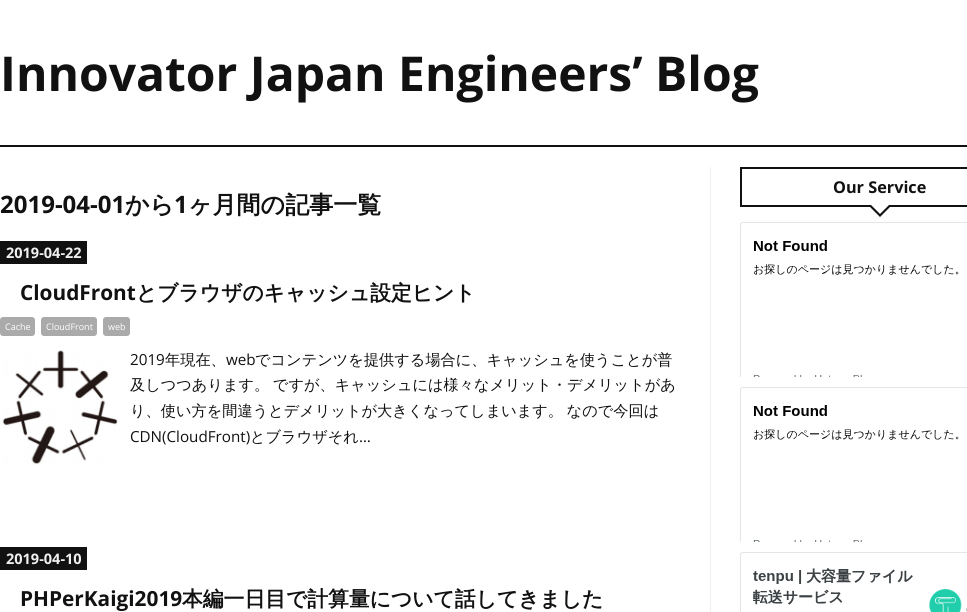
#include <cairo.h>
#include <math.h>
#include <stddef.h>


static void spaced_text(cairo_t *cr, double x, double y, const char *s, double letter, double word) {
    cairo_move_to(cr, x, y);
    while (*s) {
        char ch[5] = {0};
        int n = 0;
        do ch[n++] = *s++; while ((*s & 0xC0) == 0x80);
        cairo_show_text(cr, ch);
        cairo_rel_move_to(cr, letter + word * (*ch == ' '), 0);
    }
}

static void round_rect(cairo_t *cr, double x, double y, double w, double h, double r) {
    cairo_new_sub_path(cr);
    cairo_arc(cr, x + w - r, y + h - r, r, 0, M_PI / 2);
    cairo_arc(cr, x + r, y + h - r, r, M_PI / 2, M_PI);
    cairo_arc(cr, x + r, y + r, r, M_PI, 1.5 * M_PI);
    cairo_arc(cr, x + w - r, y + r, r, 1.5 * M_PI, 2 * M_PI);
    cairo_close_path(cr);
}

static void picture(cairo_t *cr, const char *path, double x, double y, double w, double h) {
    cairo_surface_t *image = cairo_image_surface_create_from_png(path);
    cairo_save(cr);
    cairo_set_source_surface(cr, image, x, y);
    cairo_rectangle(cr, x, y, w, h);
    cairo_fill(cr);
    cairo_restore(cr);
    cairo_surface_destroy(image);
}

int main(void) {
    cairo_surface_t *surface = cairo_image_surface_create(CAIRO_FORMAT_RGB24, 967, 612);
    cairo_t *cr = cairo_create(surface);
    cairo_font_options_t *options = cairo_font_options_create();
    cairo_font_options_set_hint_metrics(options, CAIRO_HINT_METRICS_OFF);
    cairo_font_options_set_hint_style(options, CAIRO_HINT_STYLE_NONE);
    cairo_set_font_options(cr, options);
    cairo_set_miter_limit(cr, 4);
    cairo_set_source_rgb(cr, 1, 1, 1);
    cairo_paint(cr);
    cairo_set_source_rgb(cr, 0.067, 0.067, 0.067);
    cairo_rectangle(cr, 0, 145, 967, 2);
    cairo_fill(cr);
    cairo_select_font_face(cr, "Open Sans", CAIRO_FONT_SLANT_NORMAL, CAIRO_FONT_WEIGHT_BOLD);
    cairo_set_font_size(cr, 48);
    cairo_move_to(cr, 0, 91);
    cairo_show_text(cr, "Innovator Japan Engineers’ Blog");
    cairo_rectangle(cr, 741, 168, 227, 38);
    cairo_stroke(cr);
    cairo_set_font_size(cr, 16.25);
    cairo_move_to(cr, 833, 193);
    cairo_show_text(cr, "Our Service");
    cairo_new_path(cr);
    cairo_move_to(cr, 868, 205);
    cairo_line_to(cr, 892, 205);
    cairo_line_to(cr, 880, 217);
    cairo_close_path(cr);
    cairo_fill(cr);
    cairo_set_source_rgb(cr, 1, 1, 1);
    cairo_new_path(cr);
    cairo_move_to(cr, 871, 205);
    cairo_line_to(cr, 889, 205);
    cairo_line_to(cr, 880, 214);
    cairo_close_path(cr);
    cairo_fill(cr);
    picture(cr, "img1.png", 740, 222, 227, 155);
    picture(cr, "img1.png", 740, 387, 227, 155);
    picture(cr, "img2.png", 740, 552, 227, 60);
    cairo_set_source_rgb(cr, 0.941, 0.941, 0.941);
    cairo_rectangle(cr, 710, 167, 1, 445);
    cairo_fill(cr);
    cairo_set_font_size(cr, 24);
    cairo_set_source_rgb(cr, 0.067, 0.067, 0.067);
    cairo_move_to(cr, 0, 213);
    cairo_show_text(cr, "2019-04-01");
    cairo_select_font_face(cr, "WenQuanYi Zen Hei", CAIRO_FONT_SLANT_NORMAL, CAIRO_FONT_WEIGHT_BOLD);
    cairo_move_to(cr, 125, 213);
    cairo_show_text(cr, "から");
    cairo_select_font_face(cr, "Open Sans", CAIRO_FONT_SLANT_NORMAL, CAIRO_FONT_WEIGHT_BOLD);
    cairo_move_to(cr, 174, 213);
    cairo_show_text(cr, "1");
    cairo_select_font_face(cr, "WenQuanYi Zen Hei", CAIRO_FONT_SLANT_NORMAL, CAIRO_FONT_WEIGHT_BOLD);
    cairo_move_to(cr, 188, 213);
    cairo_show_text(cr, "ヶ月間の記事一覧");
    cairo_rectangle(cr, 0, 241, 87, 23);
    cairo_fill(cr);
    cairo_select_font_face(cr, "Open Sans", CAIRO_FONT_SLANT_NORMAL, CAIRO_FONT_WEIGHT_BOLD);
    cairo_set_font_size(cr, 14.5);
    cairo_set_source_rgb(cr, 0.941, 0.941, 0.941);
    cairo_move_to(cr, 6, 258);
    cairo_show_text(cr, "2019-04-22");
    cairo_set_font_size(cr, 20.8);
    cairo_set_source_rgb(cr, 0.067, 0.067, 0.067);
    cairo_move_to(cr, 20, 300);
    cairo_show_text(cr, "CloudFront");
    cairo_select_font_face(cr, "WenQuanYi Zen Hei", CAIRO_FONT_SLANT_NORMAL, CAIRO_FONT_WEIGHT_BOLD);
    cairo_move_to(cr, 136, 300);
    cairo_show_text(cr, "とブラウザのキャッシュ設定ヒント");
    cairo_set_source_rgb(cr, 0.667, 0.667, 0.667);
    round_rect(cr, 0, 317, 35, 19, 3);
    cairo_fill(cr);
    cairo_select_font_face(cr, "Open Sans", CAIRO_FONT_SLANT_NORMAL, CAIRO_FONT_WEIGHT_NORMAL);
    cairo_set_font_size(cr, 9);
    cairo_set_source_rgb(cr, 1, 1, 1);
    cairo_move_to(cr, 5, 330);
    cairo_show_text(cr, "Cache");
    cairo_set_source_rgb(cr, 0.667, 0.667, 0.667);
    round_rect(cr, 41, 317, 56, 19, 3);
    cairo_fill(cr);
    cairo_set_source_rgb(cr, 1, 1, 1);
    cairo_move_to(cr, 46, 330);
    cairo_show_text(cr, "CloudFront");
    cairo_set_source_rgb(cr, 0.667, 0.667, 0.667);
    round_rect(cr, 103, 317, 27, 19, 3);
    cairo_fill(cr);
    cairo_set_source_rgb(cr, 1, 1, 1);
    cairo_move_to(cr, 108, 330);
    cairo_show_text(cr, "web");
    picture(cr, "img3.png", 2, 350, 116, 115);
    cairo_set_font_size(cr, 15.2);
    cairo_set_source_rgb(cr, 0.067, 0.067, 0.067);
    cairo_move_to(cr, 130, 365);
    cairo_show_text(cr, "2019");
    cairo_select_font_face(cr, "WenQuanYi Zen Hei Medium", CAIRO_FONT_SLANT_NORMAL, CAIRO_FONT_WEIGHT_NORMAL);
    cairo_move_to(cr, 165, 365);
    cairo_show_text(cr, "年現在、");
    cairo_select_font_face(cr, "Open Sans", CAIRO_FONT_SLANT_NORMAL, CAIRO_FONT_WEIGHT_NORMAL);
    cairo_move_to(cr, 226, 365);
    cairo_show_text(cr, "web");
    cairo_select_font_face(cr, "WenQuanYi Zen Hei Medium", CAIRO_FONT_SLANT_NORMAL, CAIRO_FONT_WEIGHT_NORMAL);
    cairo_move_to(cr, 255, 365);
    cairo_show_text(cr, "でコンテンツを提供する場合に、キャッシュを使うことが普");
    spaced_text(cr, 130, 390, "及しつつあります。 ですが、キャッシュには様々なメリット・デメリットがあ", 0, -1);
    spaced_text(cr, 130, 416, "り、使い方を間違うとデメリットが大きくなってしまいます。 なので今回は", 0, -1);
    cairo_select_font_face(cr, "Open Sans", CAIRO_FONT_SLANT_NORMAL, CAIRO_FONT_WEIGHT_NORMAL);
    cairo_move_to(cr, 130, 442);
    cairo_show_text(cr, "CDN(CloudFront)");
    cairo_select_font_face(cr, "WenQuanYi Zen Hei Medium", CAIRO_FONT_SLANT_NORMAL, CAIRO_FONT_WEIGHT_NORMAL);
    cairo_move_to(cr, 250, 442);
    cairo_show_text(cr, "とブラウザそれ");
    cairo_select_font_face(cr, "Open Sans", CAIRO_FONT_SLANT_NORMAL, CAIRO_FONT_WEIGHT_NORMAL);
    cairo_move_to(cr, 359, 442);
    cairo_show_text(cr, "…");
    cairo_rectangle(cr, 0, 547, 87, 23);
    cairo_fill(cr);
    cairo_select_font_face(cr, "Open Sans", CAIRO_FONT_SLANT_NORMAL, CAIRO_FONT_WEIGHT_BOLD);
    cairo_set_font_size(cr, 14.5);
    cairo_set_source_rgb(cr, 0.941, 0.941, 0.941);
    cairo_move_to(cr, 6, 564);
    cairo_show_text(cr, "2019-04-10");
    cairo_set_font_size(cr, 20.8);
    cairo_set_source_rgb(cr, 0.067, 0.067, 0.067);
    cairo_move_to(cr, 20, 606);
    cairo_show_text(cr, "PHPerKaigi2019");
    cairo_select_font_face(cr, "WenQuanYi Zen Hei", CAIRO_FONT_SLANT_NORMAL, CAIRO_FONT_WEIGHT_BOLD);
    cairo_move_to(cr, 182, 606);
    cairo_show_text(cr, "本編一日目で計算量について話してきました");
    cairo_surface_write_to_png(surface, "page.png");
    cairo_font_options_destroy(options);
    cairo_destroy(cr);
    cairo_surface_destroy(surface);
    return 0;
}
